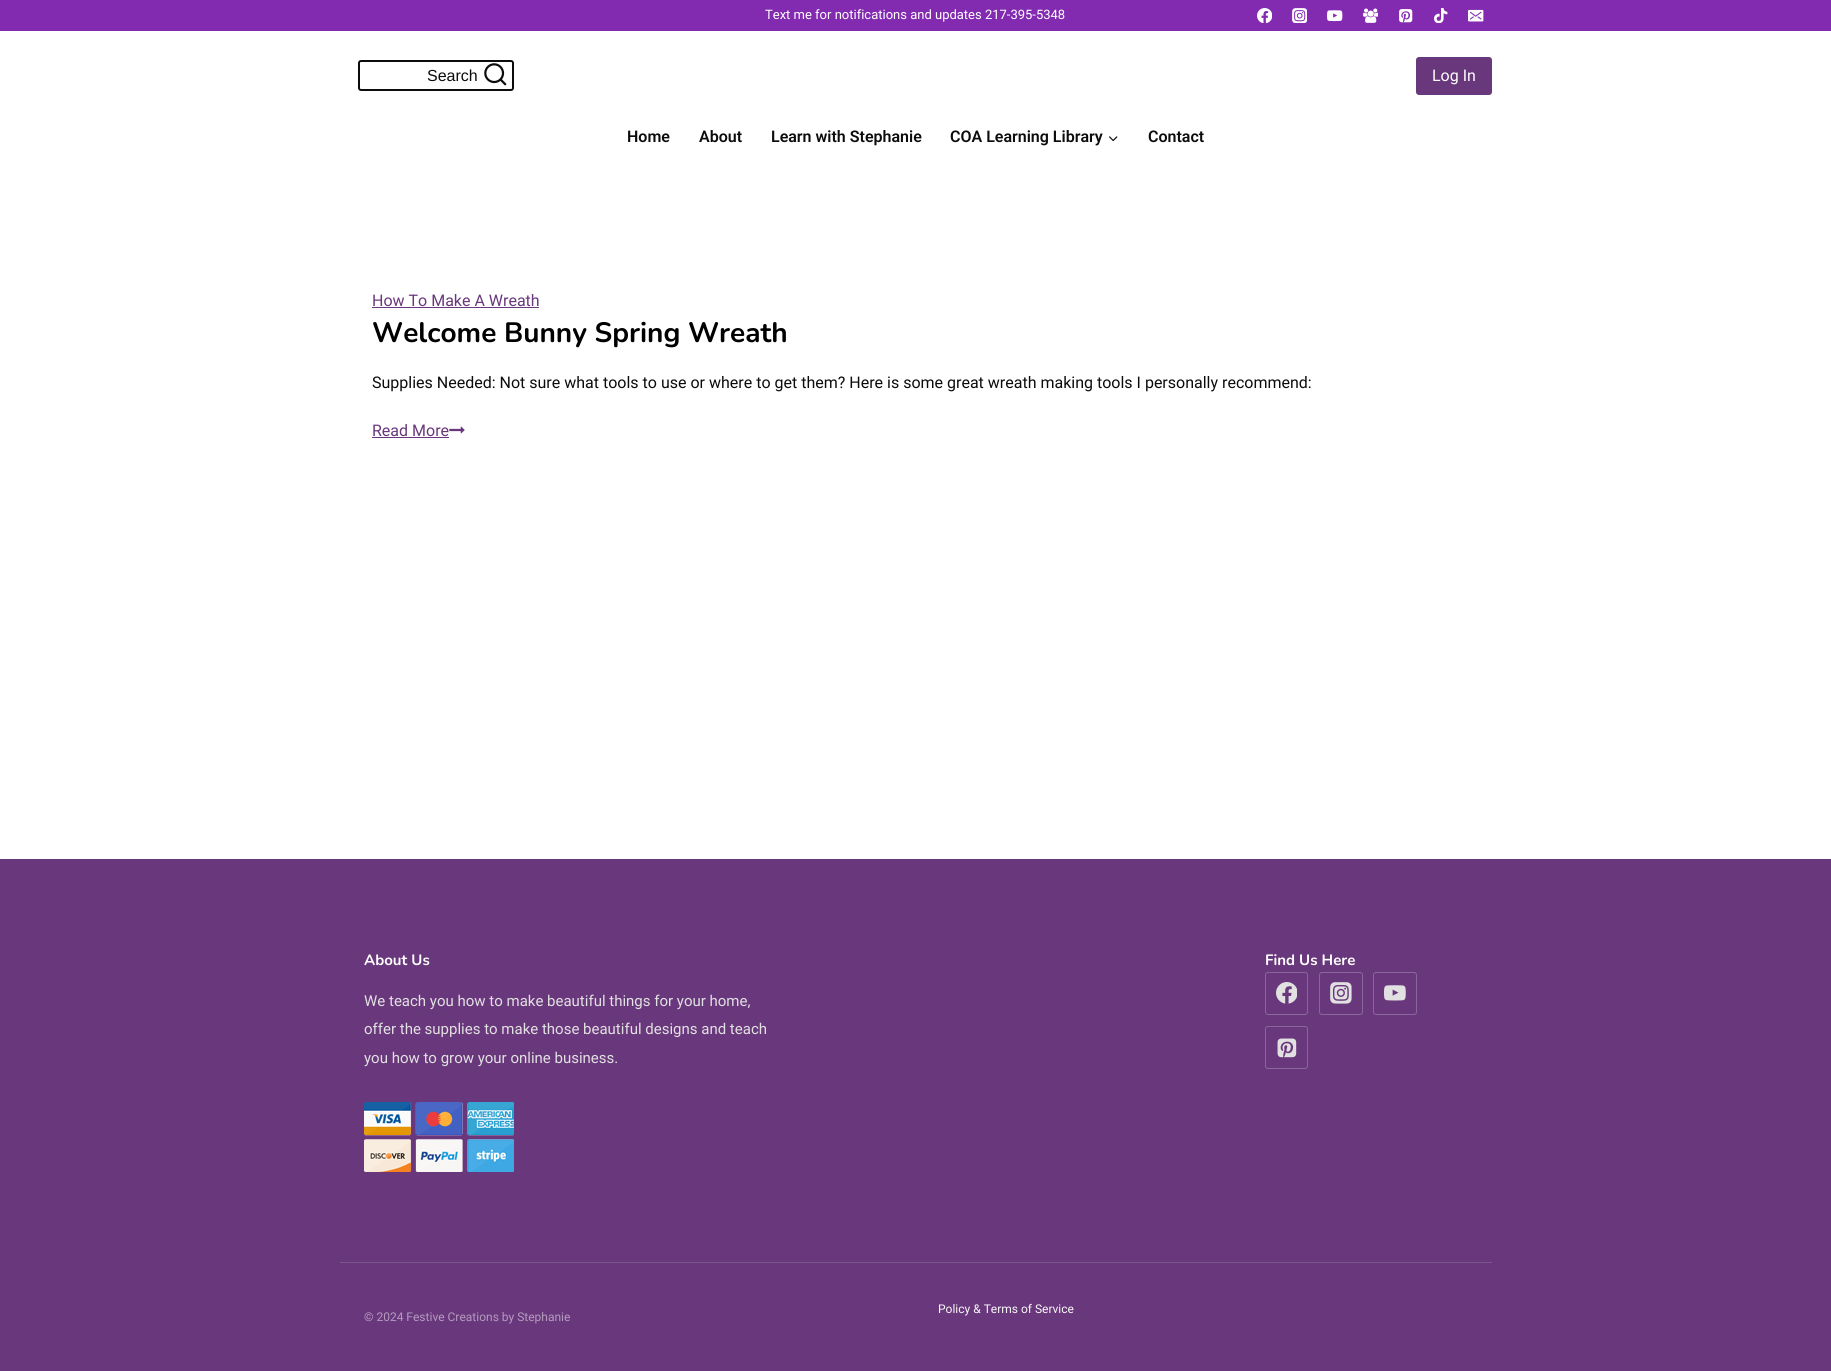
#include <cairo.h>
#include <math.h>
#include <stddef.h>


static void round_rect(cairo_t *cr, double x, double y, double w, double h, double r) {
    cairo_new_sub_path(cr);
    cairo_arc(cr, x + w - r, y + h - r, r, 0, M_PI / 2);
    cairo_arc(cr, x + r, y + h - r, r, M_PI / 2, M_PI);
    cairo_arc(cr, x + r, y + r, r, M_PI, 1.5 * M_PI);
    cairo_arc(cr, x + w - r, y + r, r, 1.5 * M_PI, 2 * M_PI);
    cairo_close_path(cr);
}

static void picture(cairo_t *cr, const char *path, double x, double y, double w, double h) {
    cairo_surface_t *image = cairo_image_surface_create_from_png(path);
    cairo_save(cr);
    cairo_set_source_surface(cr, image, x, y);
    cairo_rectangle(cr, x, y, w, h);
    cairo_fill(cr);
    cairo_restore(cr);
    cairo_surface_destroy(image);
}

int main(void) {
    cairo_surface_t *surface = cairo_image_surface_create(CAIRO_FORMAT_RGB24, 1831, 1371);
    cairo_t *cr = cairo_create(surface);
    cairo_font_options_t *options = cairo_font_options_create();
    cairo_font_options_set_hint_metrics(options, CAIRO_HINT_METRICS_OFF);
    cairo_font_options_set_hint_style(options, CAIRO_HINT_STYLE_NONE);
    cairo_set_font_options(cr, options);
    cairo_set_miter_limit(cr, 4);
    cairo_set_source_rgb(cr, 1, 1, 1);
    cairo_paint(cr);
    cairo_set_source_rgb(cr, 0.514, 0.169, 0.69);
    cairo_rectangle(cr, 0, 0, 1831, 31);
    cairo_fill(cr);
    cairo_select_font_face(cr, "Roboto", CAIRO_FONT_SLANT_NORMAL, CAIRO_FONT_WEIGHT_NORMAL);
    cairo_set_font_size(cr, 13);
    cairo_set_source_rgb(cr, 1, 1, 1);
    cairo_move_to(cr, 765, 19);
    cairo_show_text(cr, "Text me for notifications and updates 217-395-5348");
    picture(cr, "img1.png", 1257, 8, 15, 15);
    picture(cr, "img2.png", 1292, 8, 15, 15);
    picture(cr, "img3.png", 1327, 10, 16, 12);
    picture(cr, "img4.png", 1363, 8, 15, 15);
    picture(cr, "img5.png", 1399, 9, 14, 14);
    picture(cr, "img6.png", 1434, 8, 14, 15);
    picture(cr, "img7.png", 1468, 9, 16, 13);
    round_rect(cr, 359, 61, 154, 29, 2);
    cairo_set_source_rgb(cr, 0.047, 0.047, 0.047);
    cairo_stroke(cr);
    cairo_select_font_face(cr, "Liberation Sans", CAIRO_FONT_SLANT_NORMAL, CAIRO_FONT_WEIGHT_NORMAL);
    cairo_set_font_size(cr, 16);
    cairo_move_to(cr, 427, 81);
    cairo_show_text(cr, "Search");
    picture(cr, "img8.png", 484, 63, 23, 23);
    cairo_set_source_rgb(cr, 0.412, 0.216, 0.486);
    round_rect(cr, 1416, 57, 76, 38, 3);
    cairo_fill(cr);
    cairo_select_font_face(cr, "Roboto", CAIRO_FONT_SLANT_NORMAL, CAIRO_FONT_WEIGHT_NORMAL);
    cairo_set_source_rgb(cr, 1, 1, 1);
    cairo_move_to(cr, 1432, 81);
    cairo_show_text(cr, "Log In");
    cairo_select_font_face(cr, "Roboto SemiBold", CAIRO_FONT_SLANT_NORMAL, CAIRO_FONT_WEIGHT_NORMAL);
    cairo_set_source_rgb(cr, 0.047, 0.047, 0.047);
    cairo_move_to(cr, 627, 142);
    cairo_show_text(cr, "Home");
    cairo_move_to(cr, 699, 142);
    cairo_show_text(cr, "About");
    cairo_move_to(cr, 771, 142);
    cairo_show_text(cr, "Learn with Stephanie");
    cairo_move_to(cr, 950, 142);
    cairo_show_text(cr, "COA Learning Library");
    picture(cr, "img9.png", 1109, 136, 9, 6);
    cairo_move_to(cr, 1148, 142);
    cairo_show_text(cr, "Contact");
    cairo_select_font_face(cr, "Roboto", CAIRO_FONT_SLANT_NORMAL, CAIRO_FONT_WEIGHT_NORMAL);
    cairo_set_source_rgb(cr, 0.412, 0.216, 0.486);
    cairo_move_to(cr, 372, 306);
    cairo_show_text(cr, "How To Make A Wreath");
    cairo_rectangle(cr, 372, 307, 167, 1);
    cairo_fill(cr);
    cairo_select_font_face(cr, "Nunito", CAIRO_FONT_SLANT_NORMAL, CAIRO_FONT_WEIGHT_BOLD);
    cairo_set_font_size(cr, 28);
    cairo_set_source_rgb(cr, 0, 0, 0);
    cairo_move_to(cr, 372, 342);
    cairo_show_text(cr, "Welcome Bunny Spring Wreath");
    cairo_select_font_face(cr, "Roboto", CAIRO_FONT_SLANT_NORMAL, CAIRO_FONT_WEIGHT_NORMAL);
    cairo_set_font_size(cr, 16);
    cairo_set_source_rgb(cr, 0.047, 0.047, 0.047);
    cairo_move_to(cr, 372, 388);
    cairo_show_text(cr, "Supplies Needed: Not sure what tools to use or where to get them? Here is some great wreath making tools I personally recommend:");
    cairo_set_source_rgb(cr, 0.412, 0.216, 0.486);
    cairo_move_to(cr, 372, 436);
    cairo_show_text(cr, "Read More");
    cairo_rectangle(cr, 372, 437, 77, 1);
    cairo_fill(cr);
    picture(cr, "img10.png", 449, 426, 16, 8);
    cairo_rectangle(cr, 0, 859, 1831, 512);
    cairo_fill(cr);
    cairo_select_font_face(cr, "Nunito", CAIRO_FONT_SLANT_NORMAL, CAIRO_FONT_WEIGHT_BOLD);
    cairo_set_font_size(cr, 15);
    cairo_set_source_rgb(cr, 1, 1, 1);
    cairo_move_to(cr, 364, 965);
    cairo_show_text(cr, "About Us");
    cairo_select_font_face(cr, "Roboto", CAIRO_FONT_SLANT_NORMAL, CAIRO_FONT_WEIGHT_NORMAL);
    cairo_set_source_rgb(cr, 0.882, 0.882, 0.882);
    cairo_move_to(cr, 364, 1006);
    cairo_show_text(cr, "We teach you how to make beautiful things for your home,");
    cairo_move_to(cr, 364, 1034);
    cairo_show_text(cr, "offer the supplies to make those beautiful designs and teach");
    cairo_move_to(cr, 364, 1063);
    cairo_show_text(cr, "you how to grow your online business.");
    picture(cr, "img11.png", 364, 1102, 150, 70);
    cairo_select_font_face(cr, "Nunito", CAIRO_FONT_SLANT_NORMAL, CAIRO_FONT_WEIGHT_BOLD);
    cairo_set_source_rgb(cr, 1, 1, 1);
    cairo_move_to(cr, 1265, 965);
    cairo_show_text(cr, "Find Us Here");
    round_rect(cr, 1265.5, 972.5, 42, 42, 2.5);
    cairo_set_source_rgb(cr, 0.541, 0.4, 0.608);
    cairo_set_line_width(cr, 1);
    cairo_stroke(cr);
    picture(cr, "img12.png", 1276, 982, 21, 22);
    round_rect(cr, 1319.5, 972.5, 43, 42, 2.5);
    cairo_stroke(cr);
    picture(cr, "img13.png", 1330, 982, 22, 22);
    round_rect(cr, 1373.5, 972.5, 43, 42, 2.5);
    cairo_stroke(cr);
    picture(cr, "img14.png", 1384, 985, 22, 16);
    round_rect(cr, 1265.5, 1026.5, 42, 42, 2.5);
    cairo_stroke(cr);
    picture(cr, "img15.png", 1277, 1038, 20, 20);
    cairo_set_source_rgb(cr, 0.49, 0.325, 0.557);
    cairo_rectangle(cr, 340, 1262, 1152, 1);
    cairo_fill(cr);
    cairo_select_font_face(cr, "Roboto", CAIRO_FONT_SLANT_NORMAL, CAIRO_FONT_WEIGHT_NORMAL);
    cairo_set_font_size(cr, 12);
    cairo_set_source_rgb(cr, 0.969, 0.969, 0.969);
    cairo_move_to(cr, 938, 1313);
    cairo_show_text(cr, "Policy & Terms of Service");
    cairo_set_source_rgb(cr, 0.706, 0.608, 0.745);
    cairo_move_to(cr, 364, 1321);
    cairo_show_text(cr, "© 2024 Festive Creations by Stephanie");
    cairo_surface_write_to_png(surface, "page.png");
    cairo_font_options_destroy(options);
    cairo_destroy(cr);
    cairo_surface_destroy(surface);
    return 0;
}
